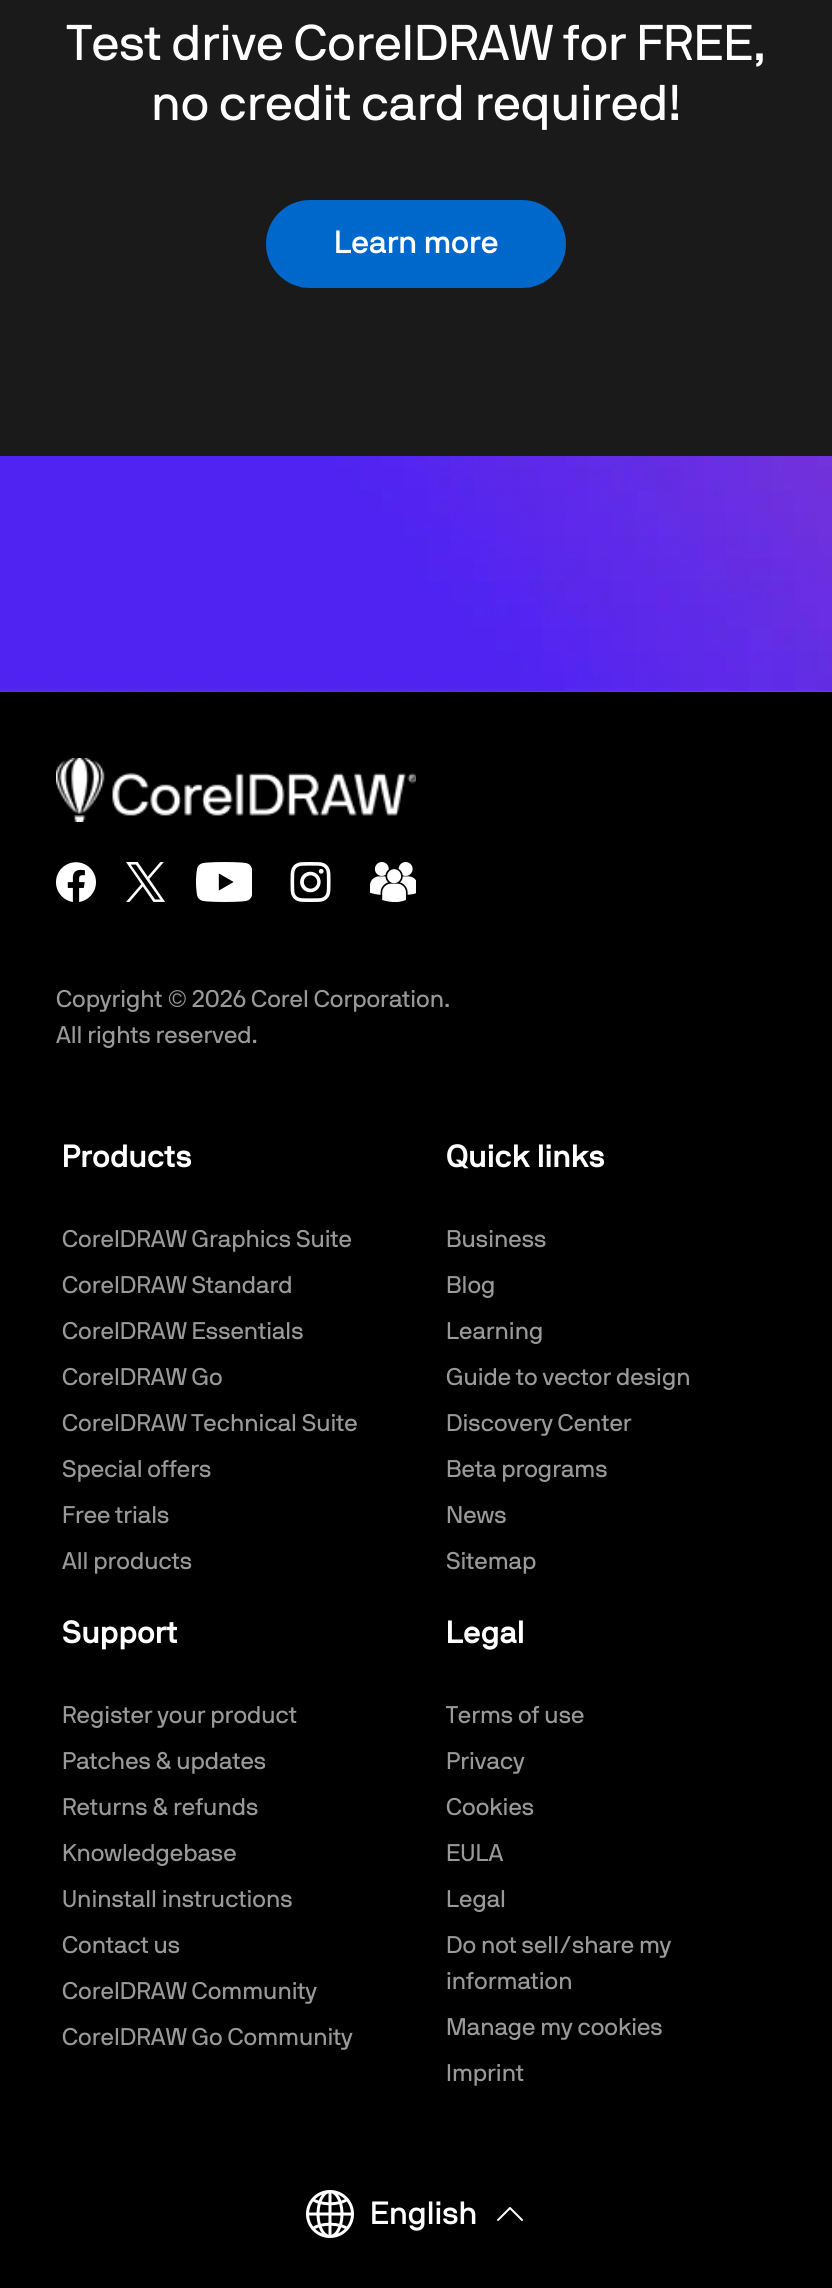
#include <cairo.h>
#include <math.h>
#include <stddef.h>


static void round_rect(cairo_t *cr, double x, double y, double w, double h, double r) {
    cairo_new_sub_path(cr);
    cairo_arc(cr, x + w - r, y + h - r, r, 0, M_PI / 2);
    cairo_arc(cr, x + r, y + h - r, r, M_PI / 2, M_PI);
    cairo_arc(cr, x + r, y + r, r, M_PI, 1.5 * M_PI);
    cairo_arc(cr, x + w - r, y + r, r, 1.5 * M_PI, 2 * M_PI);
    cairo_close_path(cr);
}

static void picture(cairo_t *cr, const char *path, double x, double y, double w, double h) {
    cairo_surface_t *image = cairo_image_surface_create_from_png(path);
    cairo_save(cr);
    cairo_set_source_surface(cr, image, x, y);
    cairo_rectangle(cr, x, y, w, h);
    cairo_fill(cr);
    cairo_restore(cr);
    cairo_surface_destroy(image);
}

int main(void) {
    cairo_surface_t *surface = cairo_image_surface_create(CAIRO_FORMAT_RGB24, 832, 2288);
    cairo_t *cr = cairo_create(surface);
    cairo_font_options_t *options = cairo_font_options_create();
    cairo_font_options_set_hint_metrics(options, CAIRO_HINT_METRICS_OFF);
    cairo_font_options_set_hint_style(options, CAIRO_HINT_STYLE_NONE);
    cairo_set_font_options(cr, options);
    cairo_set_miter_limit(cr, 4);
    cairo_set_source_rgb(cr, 1, 1, 1);
    cairo_paint(cr);
    picture(cr, "img1.png", 0, 456, 832, 236);
    cairo_set_source_rgb(cr, 0.102, 0.102, 0.102);
    cairo_rectangle(cr, 0, 0, 832, 456);
    cairo_fill(cr);
    cairo_select_font_face(cr, "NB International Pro", CAIRO_FONT_SLANT_NORMAL, CAIRO_FONT_WEIGHT_NORMAL);
    cairo_set_font_size(cr, 49.9);
    cairo_set_source_rgb(cr, 1, 1, 1);
    cairo_move_to(cr, 67, 60);
    cairo_show_text(cr, "Test drive CorelDRAW for FREE,");
    cairo_move_to(cr, 151, 120);
    cairo_show_text(cr, "no credit card required!");
    cairo_set_source_rgb(cr, 0, 0.404, 0.796);
    round_rect(cr, 268, 202, 296, 84, 42);
    cairo_fill_preserve(cr);
    cairo_set_line_width(cr, 4);
    cairo_stroke(cr);
    cairo_select_font_face(cr, "NB International Pro Medium", CAIRO_FONT_SLANT_NORMAL, CAIRO_FONT_WEIGHT_NORMAL);
    cairo_set_font_size(cr, 32);
    cairo_set_source_rgb(cr, 1, 1, 1);
    cairo_move_to(cr, 334, 253);
    cairo_show_text(cr, "Learn more");
    cairo_set_source_rgb(cr, 0, 0, 0);
    cairo_rectangle(cr, 0, 692, 832, 1596);
    cairo_fill(cr);
    picture(cr, "img2.png", 56, 758, 360, 64);
    picture(cr, "img3.png", 56, 862, 40, 40);
    picture(cr, "img4.png", 126, 862, 39, 40);
    picture(cr, "img5.png", 196, 862, 56, 40);
    picture(cr, "img6.png", 290, 862, 41, 40);
    picture(cr, "img7.png", 370, 862, 46, 40);
    cairo_select_font_face(cr, "NB International Pro", CAIRO_FONT_SLANT_NORMAL, CAIRO_FONT_WEIGHT_NORMAL);
    cairo_set_font_size(cr, 24);
    cairo_set_source_rgb(cr, 0.6, 0.6, 0.6);
    cairo_move_to(cr, 56, 1007);
    cairo_show_text(cr, "Copyright © 2026 Corel Corporation.");
    cairo_move_to(cr, 56, 1043);
    cairo_show_text(cr, "All rights reserved.");
    cairo_select_font_face(cr, "NB International Pro", CAIRO_FONT_SLANT_NORMAL, CAIRO_FONT_WEIGHT_BOLD);
    cairo_set_font_size(cr, 32);
    cairo_set_source_rgb(cr, 1, 1, 1);
    cairo_move_to(cr, 62, 1167);
    cairo_show_text(cr, "Products");
    cairo_select_font_face(cr, "NB International Pro", CAIRO_FONT_SLANT_NORMAL, CAIRO_FONT_WEIGHT_NORMAL);
    cairo_set_font_size(cr, 24);
    cairo_set_source_rgb(cr, 0.6, 0.6, 0.6);
    cairo_move_to(cr, 62, 1247);
    cairo_show_text(cr, "CorelDRAW Graphics Suite");
    cairo_move_to(cr, 62, 1293);
    cairo_show_text(cr, "CorelDRAW Standard");
    cairo_move_to(cr, 62, 1339);
    cairo_show_text(cr, "CorelDRAW Essentials");
    cairo_move_to(cr, 62, 1385);
    cairo_show_text(cr, "CorelDRAW Go");
    cairo_move_to(cr, 62, 1431);
    cairo_show_text(cr, "CorelDRAW Technical Suite");
    cairo_move_to(cr, 62, 1477);
    cairo_show_text(cr, "Special offers");
    cairo_move_to(cr, 62, 1523);
    cairo_show_text(cr, "Free trials");
    cairo_move_to(cr, 62, 1569);
    cairo_show_text(cr, "All products");
    cairo_select_font_face(cr, "NB International Pro", CAIRO_FONT_SLANT_NORMAL, CAIRO_FONT_WEIGHT_BOLD);
    cairo_set_font_size(cr, 32);
    cairo_set_source_rgb(cr, 1, 1, 1);
    cairo_move_to(cr, 446, 1167);
    cairo_show_text(cr, "Quick links");
    cairo_select_font_face(cr, "NB International Pro", CAIRO_FONT_SLANT_NORMAL, CAIRO_FONT_WEIGHT_NORMAL);
    cairo_set_font_size(cr, 24);
    cairo_set_source_rgb(cr, 0.6, 0.6, 0.6);
    cairo_move_to(cr, 446, 1247);
    cairo_show_text(cr, "Business");
    cairo_move_to(cr, 446, 1293);
    cairo_show_text(cr, "Blog");
    cairo_move_to(cr, 446, 1339);
    cairo_show_text(cr, "Learning");
    cairo_move_to(cr, 446, 1385);
    cairo_show_text(cr, "Guide to vector design");
    cairo_move_to(cr, 446, 1431);
    cairo_show_text(cr, "Discovery Center");
    cairo_move_to(cr, 446, 1477);
    cairo_show_text(cr, "Beta programs");
    cairo_move_to(cr, 446, 1523);
    cairo_show_text(cr, "News");
    cairo_move_to(cr, 446, 1569);
    cairo_show_text(cr, "Sitemap");
    cairo_select_font_face(cr, "NB International Pro", CAIRO_FONT_SLANT_NORMAL, CAIRO_FONT_WEIGHT_BOLD);
    cairo_set_font_size(cr, 32);
    cairo_set_source_rgb(cr, 1, 1, 1);
    cairo_move_to(cr, 62, 1643);
    cairo_show_text(cr, "Support");
    cairo_select_font_face(cr, "NB International Pro", CAIRO_FONT_SLANT_NORMAL, CAIRO_FONT_WEIGHT_NORMAL);
    cairo_set_font_size(cr, 24);
    cairo_set_source_rgb(cr, 0.6, 0.6, 0.6);
    cairo_move_to(cr, 62, 1723);
    cairo_show_text(cr, "Register your product");
    cairo_move_to(cr, 62, 1769);
    cairo_show_text(cr, "Patches & updates");
    cairo_move_to(cr, 62, 1815);
    cairo_show_text(cr, "Returns & refunds");
    cairo_move_to(cr, 62, 1861);
    cairo_show_text(cr, "Knowledgebase");
    cairo_move_to(cr, 62, 1907);
    cairo_show_text(cr, "Uninstall instructions");
    cairo_move_to(cr, 62, 1953);
    cairo_show_text(cr, "Contact us");
    cairo_move_to(cr, 62, 1999);
    cairo_show_text(cr, "CorelDRAW Community");
    cairo_move_to(cr, 62, 2045);
    cairo_show_text(cr, "CorelDRAW Go Community");
    cairo_select_font_face(cr, "NB International Pro", CAIRO_FONT_SLANT_NORMAL, CAIRO_FONT_WEIGHT_BOLD);
    cairo_set_font_size(cr, 32);
    cairo_set_source_rgb(cr, 1, 1, 1);
    cairo_move_to(cr, 446, 1643);
    cairo_show_text(cr, "Legal");
    cairo_select_font_face(cr, "NB International Pro", CAIRO_FONT_SLANT_NORMAL, CAIRO_FONT_WEIGHT_NORMAL);
    cairo_set_font_size(cr, 24);
    cairo_set_source_rgb(cr, 0.6, 0.6, 0.6);
    cairo_move_to(cr, 446, 1723);
    cairo_show_text(cr, "Terms of use");
    cairo_move_to(cr, 446, 1769);
    cairo_show_text(cr, "Privacy");
    cairo_move_to(cr, 446, 1815);
    cairo_show_text(cr, "Cookies");
    cairo_move_to(cr, 446, 1861);
    cairo_show_text(cr, "EULA");
    cairo_move_to(cr, 446, 1907);
    cairo_show_text(cr, "Legal");
    cairo_move_to(cr, 446, 1953);
    cairo_show_text(cr, "Do not sell/share my");
    cairo_move_to(cr, 446, 1989);
    cairo_show_text(cr, "information");
    cairo_move_to(cr, 446, 2035);
    cairo_show_text(cr, "Manage my cookies");
    cairo_move_to(cr, 446, 2081);
    cairo_show_text(cr, "Imprint");
    picture(cr, "img8.png", 306, 2190, 48, 48);
    cairo_select_font_face(cr, "NB International Pro Medium", CAIRO_FONT_SLANT_NORMAL, CAIRO_FONT_WEIGHT_NORMAL);
    cairo_set_font_size(cr, 32);
    cairo_set_source_rgb(cr, 1, 1, 1);
    cairo_move_to(cr, 370, 2224);
    cairo_show_text(cr, "English");
    picture(cr, "img9.png", 497, 2207, 26, 14);
    cairo_surface_write_to_png(surface, "page.png");
    cairo_font_options_destroy(options);
    cairo_destroy(cr);
    cairo_surface_destroy(surface);
    return 0;
}
